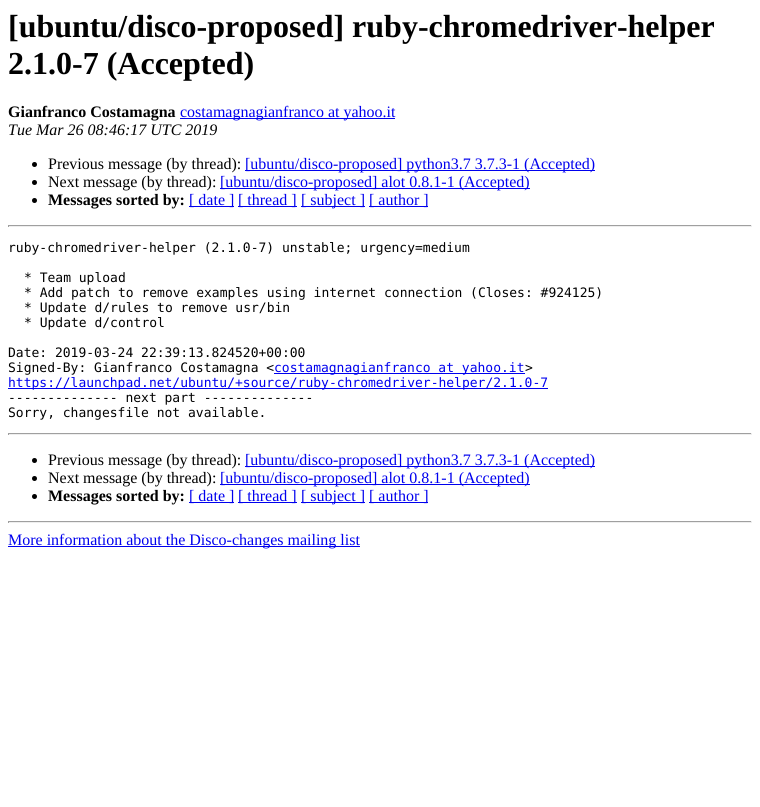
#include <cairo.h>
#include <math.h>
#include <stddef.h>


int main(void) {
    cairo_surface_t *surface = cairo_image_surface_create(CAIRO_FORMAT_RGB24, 760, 807);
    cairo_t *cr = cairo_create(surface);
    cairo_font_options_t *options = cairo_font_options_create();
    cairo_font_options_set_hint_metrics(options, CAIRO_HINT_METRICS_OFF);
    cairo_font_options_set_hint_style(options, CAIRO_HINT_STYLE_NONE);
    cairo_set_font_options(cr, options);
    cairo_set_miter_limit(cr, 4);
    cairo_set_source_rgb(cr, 1, 1, 1);
    cairo_paint(cr);
    cairo_select_font_face(cr, "Liberation Serif", CAIRO_FONT_SLANT_NORMAL, CAIRO_FONT_WEIGHT_BOLD);
    cairo_set_font_size(cr, 32);
    cairo_set_source_rgb(cr, 0, 0, 0);
    cairo_move_to(cr, 8, 37);
    cairo_show_text(cr, "[ubuntu/disco-proposed] ruby-chromedriver-helper");
    cairo_move_to(cr, 8, 74);
    cairo_show_text(cr, "2.1.0-7 (Accepted)");
    cairo_set_font_size(cr, 16);
    cairo_move_to(cr, 8, 117);
    cairo_show_text(cr, "Gianfranco Costamagna");
    cairo_set_source_rgb(cr, 0, 0, 0.933);
    cairo_rectangle(cr, 180, 118, 215, 1);
    cairo_fill(cr);
    cairo_select_font_face(cr, "Liberation Serif", CAIRO_FONT_SLANT_NORMAL, CAIRO_FONT_WEIGHT_NORMAL);
    cairo_move_to(cr, 180, 117);
    cairo_show_text(cr, "costamagnagianfranco at yahoo.it");
    cairo_select_font_face(cr, "Liberation Serif", CAIRO_FONT_SLANT_ITALIC, CAIRO_FONT_WEIGHT_NORMAL);
    cairo_set_source_rgb(cr, 0, 0, 0);
    cairo_move_to(cr, 8, 135);
    cairo_show_text(cr, "Tue Mar 26 08:46:17 UTC 2019");
    cairo_new_path(cr);
    cairo_arc(cr, 34.5, 164.5, 2.5, 0, 2 * M_PI);
    cairo_fill(cr);
    cairo_select_font_face(cr, "Liberation Serif", CAIRO_FONT_SLANT_NORMAL, CAIRO_FONT_WEIGHT_NORMAL);
    cairo_move_to(cr, 48, 169);
    cairo_show_text(cr, "Previous message (by thread):");
    cairo_set_source_rgb(cr, 0, 0, 0.933);
    cairo_rectangle(cr, 245, 170, 350, 1);
    cairo_fill(cr);
    cairo_move_to(cr, 245, 169);
    cairo_show_text(cr, "[ubuntu/disco-proposed] python3.7 3.7.3-1 (Accepted)");
    cairo_set_source_rgb(cr, 0, 0, 0);
    cairo_new_path(cr);
    cairo_arc(cr, 34.5, 182.5, 2.5, 0, 2 * M_PI);
    cairo_fill(cr);
    cairo_move_to(cr, 48, 187);
    cairo_show_text(cr, "Next message (by thread):");
    cairo_set_source_rgb(cr, 0, 0, 0.933);
    cairo_rectangle(cr, 220, 188, 310, 1);
    cairo_fill(cr);
    cairo_move_to(cr, 220, 187);
    cairo_show_text(cr, "[ubuntu/disco-proposed] alot 0.8.1-1 (Accepted)");
    cairo_set_source_rgb(cr, 0, 0, 0);
    cairo_new_path(cr);
    cairo_arc(cr, 34.5, 200.5, 2.5, 0, 2 * M_PI);
    cairo_fill(cr);
    cairo_select_font_face(cr, "Liberation Serif", CAIRO_FONT_SLANT_NORMAL, CAIRO_FONT_WEIGHT_BOLD);
    cairo_move_to(cr, 48, 205);
    cairo_show_text(cr, "Messages sorted by:");
    cairo_set_source_rgb(cr, 0, 0, 0.933);
    cairo_rectangle(cr, 189, 206, 45, 1);
    cairo_fill(cr);
    cairo_select_font_face(cr, "Liberation Serif", CAIRO_FONT_SLANT_NORMAL, CAIRO_FONT_WEIGHT_NORMAL);
    cairo_move_to(cr, 189, 205);
    cairo_show_text(cr, "[ date ]");
    cairo_rectangle(cr, 238, 206, 59, 1);
    cairo_fill(cr);
    cairo_move_to(cr, 238, 205);
    cairo_show_text(cr, "[ thread ]");
    cairo_rectangle(cr, 301, 206, 64, 1);
    cairo_fill(cr);
    cairo_move_to(cr, 301, 205);
    cairo_show_text(cr, "[ subject ]");
    cairo_rectangle(cr, 369, 206, 59, 1);
    cairo_fill(cr);
    cairo_move_to(cr, 369, 205);
    cairo_show_text(cr, "[ author ]");
    cairo_set_source_rgb(cr, 0.624, 0.624, 0.624);
    cairo_rectangle(cr, 8, 225, 744, 1);
    cairo_fill(cr);
    cairo_set_source_rgb(cr, 0.933, 0.933, 0.933);
    cairo_rectangle(cr, 751, 225, 1, 2);
    cairo_fill(cr);
    cairo_rectangle(cr, 8, 226, 744, 1);
    cairo_fill(cr);
    cairo_set_source_rgb(cr, 0.624, 0.624, 0.624);
    cairo_rectangle(cr, 8, 225, 1, 2);
    cairo_fill(cr);
    cairo_select_font_face(cr, "DejaVu Sans Mono", CAIRO_FONT_SLANT_NORMAL, CAIRO_FONT_WEIGHT_NORMAL);
    cairo_set_font_size(cr, 13);
    cairo_set_source_rgb(cr, 0, 0, 0);
    cairo_move_to(cr, 8, 252);
    cairo_show_text(cr, "ruby-chromedriver-helper (2.1.0-7) unstable; urgency=medium");
    cairo_move_to(cr, 24, 282);
    cairo_show_text(cr, "* Team upload");
    cairo_move_to(cr, 24, 297);
    cairo_show_text(cr, "* Add patch to remove examples using internet connection (Closes: #924125)");
    cairo_move_to(cr, 24, 312);
    cairo_show_text(cr, "* Update d/rules to remove usr/bin");
    cairo_move_to(cr, 24, 327);
    cairo_show_text(cr, "* Update d/control");
    cairo_move_to(cr, 8, 357);
    cairo_show_text(cr, "Date: 2019-03-24 22:39:13.824520+00:00");
    cairo_move_to(cr, 8, 372);
    cairo_show_text(cr, "Signed-By: Gianfranco Costamagna <");
    cairo_set_source_rgb(cr, 0, 0, 0.933);
    cairo_rectangle(cr, 274, 373, 251, 1);
    cairo_fill(cr);
    cairo_move_to(cr, 274, 372);
    cairo_show_text(cr, "costamagnagianfranco at yahoo.it");
    cairo_set_source_rgb(cr, 0, 0, 0);
    cairo_move_to(cr, 525, 372);
    cairo_show_text(cr, ">");
    cairo_set_source_rgb(cr, 0, 0, 0.933);
    cairo_rectangle(cr, 8, 388, 540, 1);
    cairo_fill(cr);
    cairo_move_to(cr, 8, 387);
    cairo_show_text(cr, "https://launchpad.net/ubuntu/+source/ruby-chromedriver-helper/2.1.0-7");
    cairo_set_source_rgb(cr, 0, 0, 0);
    cairo_move_to(cr, 8, 402);
    cairo_show_text(cr, "-------------- next part --------------");
    cairo_move_to(cr, 8, 417);
    cairo_show_text(cr, "Sorry, changesfile not available.");
    cairo_set_source_rgb(cr, 0.624, 0.624, 0.624);
    cairo_rectangle(cr, 8, 433, 744, 1);
    cairo_fill(cr);
    cairo_set_source_rgb(cr, 0.933, 0.933, 0.933);
    cairo_rectangle(cr, 751, 433, 1, 2);
    cairo_fill(cr);
    cairo_rectangle(cr, 8, 434, 744, 1);
    cairo_fill(cr);
    cairo_set_source_rgb(cr, 0.624, 0.624, 0.624);
    cairo_rectangle(cr, 8, 433, 1, 2);
    cairo_fill(cr);
    cairo_set_source_rgb(cr, 0, 0, 0);
    cairo_arc(cr, 34.5, 460.5, 2.5, 0, 2 * M_PI);
    cairo_fill(cr);
    cairo_select_font_face(cr, "Liberation Serif", CAIRO_FONT_SLANT_NORMAL, CAIRO_FONT_WEIGHT_NORMAL);
    cairo_set_font_size(cr, 16);
    cairo_move_to(cr, 48, 465);
    cairo_show_text(cr, "Previous message (by thread):");
    cairo_set_source_rgb(cr, 0, 0, 0.933);
    cairo_rectangle(cr, 245, 466, 350, 1);
    cairo_fill(cr);
    cairo_move_to(cr, 245, 465);
    cairo_show_text(cr, "[ubuntu/disco-proposed] python3.7 3.7.3-1 (Accepted)");
    cairo_set_source_rgb(cr, 0, 0, 0);
    cairo_new_path(cr);
    cairo_arc(cr, 34.5, 478.5, 2.5, 0, 2 * M_PI);
    cairo_fill(cr);
    cairo_move_to(cr, 48, 483);
    cairo_show_text(cr, "Next message (by thread):");
    cairo_set_source_rgb(cr, 0, 0, 0.933);
    cairo_rectangle(cr, 220, 484, 310, 1);
    cairo_fill(cr);
    cairo_move_to(cr, 220, 483);
    cairo_show_text(cr, "[ubuntu/disco-proposed] alot 0.8.1-1 (Accepted)");
    cairo_set_source_rgb(cr, 0, 0, 0);
    cairo_new_path(cr);
    cairo_arc(cr, 34.5, 496.5, 2.5, 0, 2 * M_PI);
    cairo_fill(cr);
    cairo_select_font_face(cr, "Liberation Serif", CAIRO_FONT_SLANT_NORMAL, CAIRO_FONT_WEIGHT_BOLD);
    cairo_move_to(cr, 48, 501);
    cairo_show_text(cr, "Messages sorted by:");
    cairo_set_source_rgb(cr, 0, 0, 0.933);
    cairo_rectangle(cr, 189, 502, 45, 1);
    cairo_fill(cr);
    cairo_select_font_face(cr, "Liberation Serif", CAIRO_FONT_SLANT_NORMAL, CAIRO_FONT_WEIGHT_NORMAL);
    cairo_move_to(cr, 189, 501);
    cairo_show_text(cr, "[ date ]");
    cairo_rectangle(cr, 238, 502, 59, 1);
    cairo_fill(cr);
    cairo_move_to(cr, 238, 501);
    cairo_show_text(cr, "[ thread ]");
    cairo_rectangle(cr, 301, 502, 64, 1);
    cairo_fill(cr);
    cairo_move_to(cr, 301, 501);
    cairo_show_text(cr, "[ subject ]");
    cairo_rectangle(cr, 369, 502, 59, 1);
    cairo_fill(cr);
    cairo_move_to(cr, 369, 501);
    cairo_show_text(cr, "[ author ]");
    cairo_set_source_rgb(cr, 0.624, 0.624, 0.624);
    cairo_rectangle(cr, 8, 521, 744, 1);
    cairo_fill(cr);
    cairo_set_source_rgb(cr, 0.933, 0.933, 0.933);
    cairo_rectangle(cr, 751, 521, 1, 2);
    cairo_fill(cr);
    cairo_rectangle(cr, 8, 522, 744, 1);
    cairo_fill(cr);
    cairo_set_source_rgb(cr, 0.624, 0.624, 0.624);
    cairo_rectangle(cr, 8, 521, 1, 2);
    cairo_fill(cr);
    cairo_set_source_rgb(cr, 0, 0, 0.933);
    cairo_rectangle(cr, 8, 546, 352, 1);
    cairo_fill(cr);
    cairo_move_to(cr, 8, 545);
    cairo_show_text(cr, "More information about the Disco-changes mailing list");
    cairo_surface_write_to_png(surface, "page.png");
    cairo_font_options_destroy(options);
    cairo_destroy(cr);
    cairo_surface_destroy(surface);
    return 0;
}
